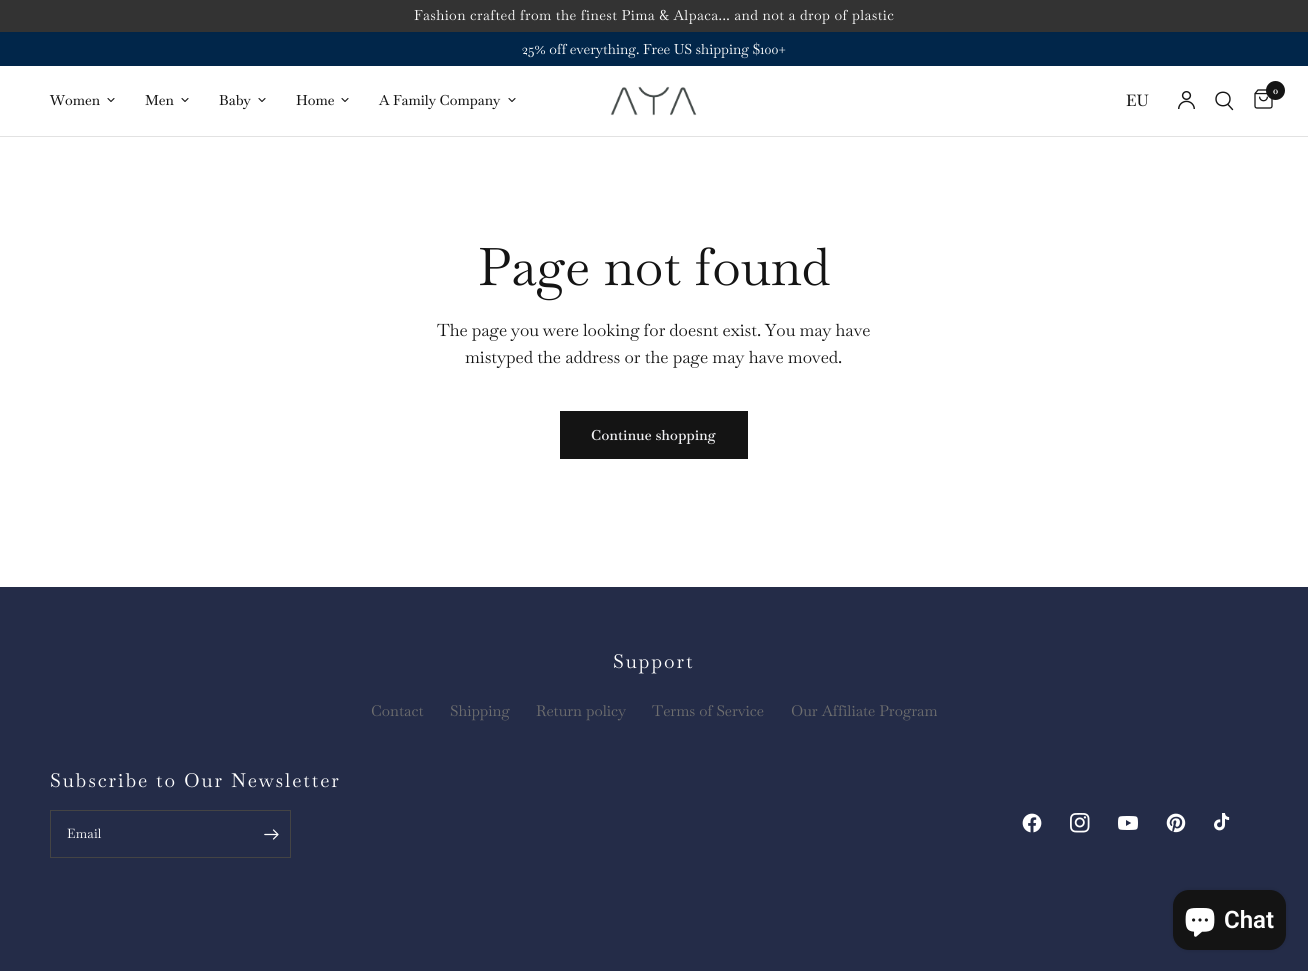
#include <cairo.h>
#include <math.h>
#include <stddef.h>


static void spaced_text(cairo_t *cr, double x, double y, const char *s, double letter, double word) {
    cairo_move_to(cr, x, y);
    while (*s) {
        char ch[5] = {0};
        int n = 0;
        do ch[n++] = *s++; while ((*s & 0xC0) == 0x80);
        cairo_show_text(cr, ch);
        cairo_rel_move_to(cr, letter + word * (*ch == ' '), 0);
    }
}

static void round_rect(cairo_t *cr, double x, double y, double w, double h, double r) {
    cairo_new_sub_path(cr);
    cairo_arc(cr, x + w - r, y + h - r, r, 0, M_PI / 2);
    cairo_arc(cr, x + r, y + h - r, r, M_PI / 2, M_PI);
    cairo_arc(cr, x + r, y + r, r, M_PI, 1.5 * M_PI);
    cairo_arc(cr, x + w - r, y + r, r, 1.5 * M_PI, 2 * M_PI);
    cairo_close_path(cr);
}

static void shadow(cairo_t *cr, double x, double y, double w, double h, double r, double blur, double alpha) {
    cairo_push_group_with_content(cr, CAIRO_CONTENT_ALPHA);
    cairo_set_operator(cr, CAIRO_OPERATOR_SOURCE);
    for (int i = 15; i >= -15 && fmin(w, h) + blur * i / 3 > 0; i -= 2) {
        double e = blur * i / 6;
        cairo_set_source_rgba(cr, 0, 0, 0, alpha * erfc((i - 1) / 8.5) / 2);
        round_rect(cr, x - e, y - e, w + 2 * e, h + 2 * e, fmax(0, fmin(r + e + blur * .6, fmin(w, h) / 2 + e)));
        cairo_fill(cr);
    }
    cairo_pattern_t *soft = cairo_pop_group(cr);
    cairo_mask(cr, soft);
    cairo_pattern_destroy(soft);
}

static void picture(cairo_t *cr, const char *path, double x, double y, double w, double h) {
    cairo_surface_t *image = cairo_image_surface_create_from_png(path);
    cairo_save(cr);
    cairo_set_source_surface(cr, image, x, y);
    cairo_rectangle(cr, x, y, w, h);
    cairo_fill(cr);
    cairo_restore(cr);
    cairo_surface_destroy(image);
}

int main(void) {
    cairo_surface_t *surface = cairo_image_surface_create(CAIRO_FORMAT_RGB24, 1308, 971);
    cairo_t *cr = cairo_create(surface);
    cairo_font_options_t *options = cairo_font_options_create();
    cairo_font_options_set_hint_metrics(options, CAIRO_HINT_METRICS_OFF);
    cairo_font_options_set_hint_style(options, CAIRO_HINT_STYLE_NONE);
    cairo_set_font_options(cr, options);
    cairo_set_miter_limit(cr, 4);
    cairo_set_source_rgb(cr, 1, 1, 1);
    cairo_paint(cr);
    cairo_set_source_rgb(cr, 0.004, 0.149, 0.29);
    cairo_rectangle(cr, 0, 32, 1308, 34);
    cairo_fill(cr);
    cairo_set_source_rgb(cr, 0, 0, 0);
    shadow(cr, 0, 1, 1308, 32, 0, 2, 0.06);
    cairo_set_source_rgb(cr, 0.2, 0.2, 0.2);
    cairo_rectangle(cr, 0, 0, 1308, 32);
    cairo_fill(cr);
    cairo_select_font_face(cr, "Baskervville", CAIRO_FONT_SLANT_NORMAL, CAIRO_FONT_WEIGHT_NORMAL);
    cairo_set_font_size(cr, 14);
    cairo_set_source_rgb(cr, 1, 1, 1);
    spaced_text(cr, 414, 20, "Fashion crafted from the finest Pima & Alpaca... and not a drop of plastic", 0.42, 0);
    spaced_text(cr, 522, 54, "25% off everything. Free US shipping $100+", 0, -0.25);
    cairo_set_source_rgb(cr, 0.886, 0.886, 0.886);
    cairo_rectangle(cr, 0, 136, 1308, 1);
    cairo_fill(cr);
    cairo_select_font_face(cr, "Baskervville Medium", CAIRO_FONT_SLANT_NORMAL, CAIRO_FONT_WEIGHT_NORMAL);
    cairo_set_source_rgb(cr, 0.082, 0.082, 0.082);
    cairo_move_to(cr, 50, 105);
    cairo_show_text(cr, "Women");
    cairo_new_path(cr);
    cairo_move_to(cr, 114, 98.5);
    cairo_line_to(cr, 111, 101.5);
    cairo_line_to(cr, 108, 98.5);
    cairo_set_line_width(cr, 1.1);
    cairo_set_line_cap(cr, CAIRO_LINE_CAP_ROUND);
    cairo_set_line_join(cr, CAIRO_LINE_JOIN_ROUND);
    cairo_stroke(cr);
    cairo_move_to(cr, 145, 105);
    cairo_show_text(cr, "Men");
    cairo_new_path(cr);
    cairo_move_to(cr, 188, 98.5);
    cairo_line_to(cr, 185, 101.5);
    cairo_line_to(cr, 182, 98.5);
    cairo_stroke(cr);
    cairo_move_to(cr, 219, 105);
    cairo_show_text(cr, "Baby");
    cairo_new_path(cr);
    cairo_move_to(cr, 265, 98.5);
    cairo_line_to(cr, 262, 101.5);
    cairo_line_to(cr, 259, 98.5);
    cairo_stroke(cr);
    cairo_move_to(cr, 296, 105);
    cairo_show_text(cr, "Home");
    cairo_new_path(cr);
    cairo_move_to(cr, 348, 98.5);
    cairo_line_to(cr, 345, 101.5);
    cairo_line_to(cr, 342, 98.5);
    cairo_stroke(cr);
    cairo_move_to(cr, 379, 105);
    cairo_show_text(cr, "A Family Company");
    cairo_new_path(cr);
    cairo_move_to(cr, 515, 98.5);
    cairo_line_to(cr, 512, 101.5);
    cairo_line_to(cr, 509, 98.5);
    cairo_stroke(cr);
    picture(cr, "img1.png", 610, 86, 87, 30);
    cairo_set_font_size(cr, 16);
    cairo_move_to(cr, 1126, 106);
    cairo_show_text(cr, "EU");
    picture(cr, "img2.png", 1178, 91, 17, 18);
    cairo_new_path(cr);
    cairo_move_to(cr, 1228, 104.5);
    cairo_line_to(cr, 1232.5, 109.5);
    cairo_move_to(cr, 1230, 99);
    cairo_curve_to(cr, 1230, 108, 1216, 108, 1216, 99);
    cairo_curve_to(cr, 1216, 90, 1230, 90, 1230, 99);
    cairo_close_path(cr);
    cairo_set_line_width(cr, 1.4);
    cairo_stroke(cr);
    picture(cr, "img3.png", 1254, 89, 19, 20);
    cairo_arc(cr, 1275.5, 90.5, 9.5, 0, 2 * M_PI);
    cairo_fill(cr);
    cairo_select_font_face(cr, "Baskervville SemiBold", CAIRO_FONT_SLANT_NORMAL, CAIRO_FONT_WEIGHT_NORMAL);
    cairo_set_font_size(cr, 10);
    cairo_set_source_rgb(cr, 1, 1, 1);
    cairo_move_to(cr, 1273, 94);
    cairo_show_text(cr, "0");
    cairo_select_font_face(cr, "Baskervville", CAIRO_FONT_SLANT_NORMAL, CAIRO_FONT_WEIGHT_NORMAL);
    cairo_set_font_size(cr, 52);
    cairo_set_source_rgb(cr, 0.082, 0.082, 0.082);
    cairo_move_to(cr, 478, 285);
    cairo_show_text(cr, "Page not found");
    cairo_set_font_size(cr, 17);
    spaced_text(cr, 437, 336, "The page you were looking for doesnt exist. You may have", 0, -0.5);
    spaced_text(cr, 465, 363, "mistyped the address or the page may have moved.", 0, -0.25);
    cairo_rectangle(cr, 560, 411, 188, 48);
    cairo_fill(cr);
    cairo_select_font_face(cr, "Baskervville SemiBold", CAIRO_FONT_SLANT_NORMAL, CAIRO_FONT_WEIGHT_NORMAL);
    cairo_set_font_size(cr, 14);
    cairo_set_source_rgb(cr, 0.941, 0.941, 0.949);
    spaced_text(cr, 591, 440, "Continue shopping", 0.25, 0);
    cairo_set_source_rgb(cr, 0.141, 0.173, 0.282);
    cairo_rectangle(cr, 0, 587, 1308, 384);
    cairo_fill(cr);
    cairo_select_font_face(cr, "Baskervville", CAIRO_FONT_SLANT_NORMAL, CAIRO_FONT_WEIGHT_NORMAL);
    cairo_set_font_size(cr, 19.25);
    cairo_set_source_rgb(cr, 1, 1, 1);
    spaced_text(cr, 613, 668, "Support", 1.9, 0);
    cairo_set_font_size(cr, 15);
    cairo_set_source_rgb(cr, 0.431, 0.431, 0.431);
    cairo_move_to(cr, 371, 716);
    cairo_show_text(cr, "Contact");
    cairo_move_to(cr, 450, 716);
    cairo_show_text(cr, "Shipping");
    cairo_move_to(cr, 536, 716);
    cairo_show_text(cr, "Return policy");
    cairo_move_to(cr, 652, 716);
    cairo_show_text(cr, "Terms of Service");
    cairo_move_to(cr, 791, 716);
    cairo_show_text(cr, "Our Affiliate Program");
    cairo_set_font_size(cr, 19.25);
    cairo_set_source_rgb(cr, 1, 1, 1);
    spaced_text(cr, 50, 787, "Subscribe to Our Newsletter", 1.9, 0);
    cairo_rectangle(cr, 50.5, 810.5, 240, 47);
    cairo_set_source_rgb(cr, 0.267, 0.267, 0.267);
    cairo_set_line_width(cr, 1);
    cairo_set_line_cap(cr, CAIRO_LINE_CAP_BUTT);
    cairo_set_line_join(cr, CAIRO_LINE_JOIN_MITER);
    cairo_stroke(cr);
    cairo_set_font_size(cr, 13);
    cairo_set_source_rgb(cr, 1, 1, 1);
    spaced_text(cr, 67, 838, "Email", 0.25, 0);
    picture(cr, "img4.png", 264, 829, 15, 11);
    picture(cr, "img5.png", 1022, 813, 20, 20);
    picture(cr, "img6.png", 1070, 813, 20, 20);
    picture(cr, "img7.png", 1118, 816, 20, 14);
    picture(cr, "img8.png", 1166, 813, 20, 20);
    picture(cr, "img9.png", 1214, 813, 16, 18);
    cairo_set_source_rgb(cr, 0, 0, 0);
    shadow(cr, 1173, 890, 113, 60, 16, 2.5, 0.15);
    cairo_set_source_rgb(cr, 0.082, 0.082, 0.082);
    round_rect(cr, 1173, 890, 113, 60, 16);
    cairo_fill(cr);
    picture(cr, "img10.png", 1185, 908, 30, 29);
    cairo_select_font_face(cr, "Roboto SemiBold", CAIRO_FONT_SLANT_NORMAL, CAIRO_FONT_WEIGHT_NORMAL);
    cairo_set_font_size(cr, 24);
    cairo_set_source_rgb(cr, 1, 1, 1);
    cairo_move_to(cr, 1224, 928);
    cairo_show_text(cr, "Chat");
    cairo_surface_write_to_png(surface, "page.png");
    cairo_font_options_destroy(options);
    cairo_destroy(cr);
    cairo_surface_destroy(surface);
    return 0;
}
